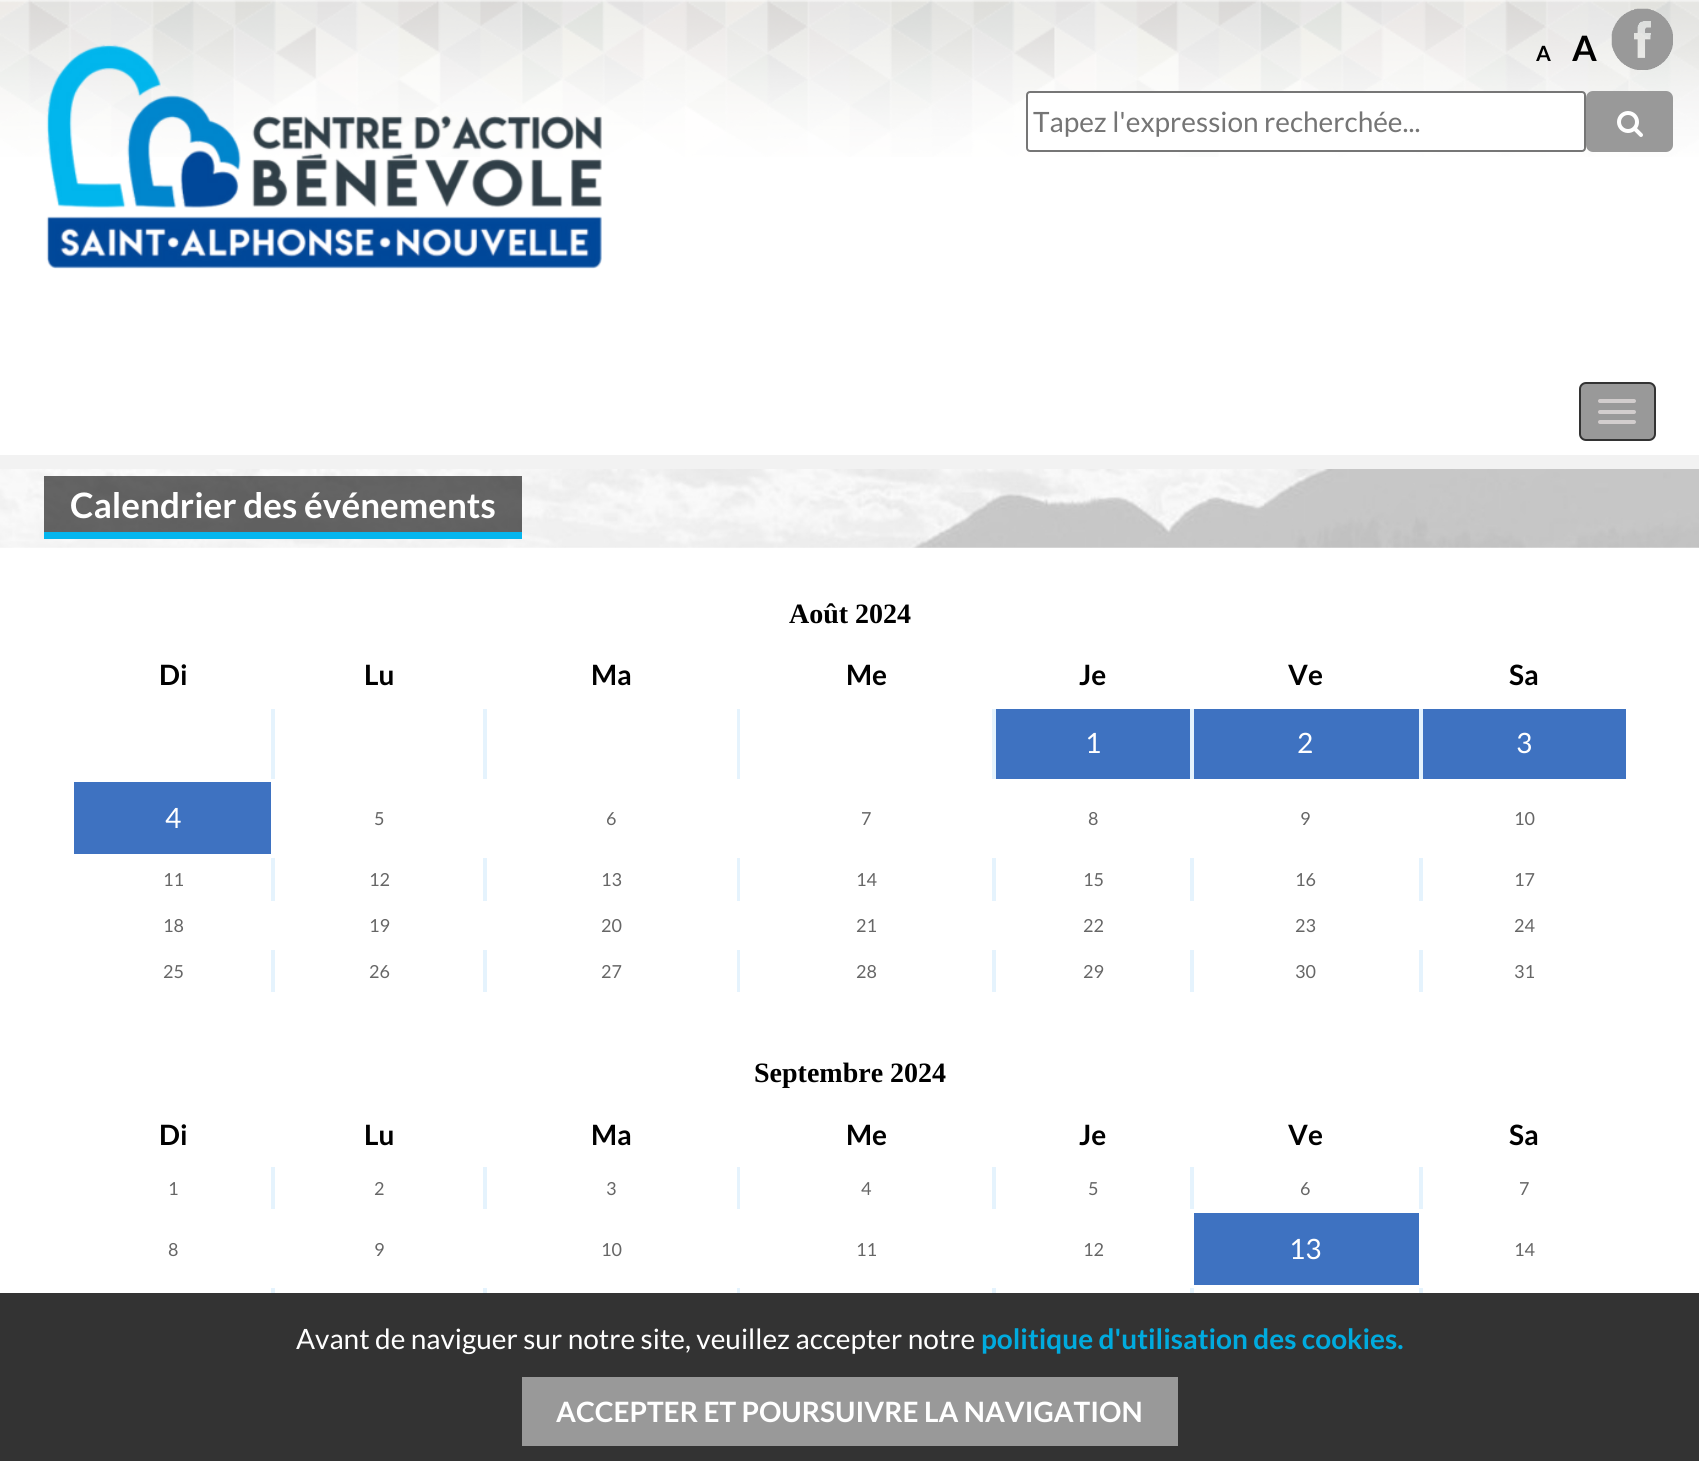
#include <cairo.h>
#include <math.h>
#include <stddef.h>


static void round_rect(cairo_t *cr, double x, double y, double w, double h, double r) {
    cairo_new_sub_path(cr);
    cairo_arc(cr, x + w - r, y + h - r, r, 0, M_PI / 2);
    cairo_arc(cr, x + r, y + h - r, r, M_PI / 2, M_PI);
    cairo_arc(cr, x + r, y + r, r, M_PI, 1.5 * M_PI);
    cairo_arc(cr, x + w - r, y + r, r, 1.5 * M_PI, 2 * M_PI);
    cairo_close_path(cr);
}

static void picture(cairo_t *cr, const char *path, double x, double y, double w, double h) {
    cairo_surface_t *image = cairo_image_surface_create_from_png(path);
    cairo_save(cr);
    cairo_set_source_surface(cr, image, x, y);
    cairo_rectangle(cr, x, y, w, h);
    cairo_fill(cr);
    cairo_restore(cr);
    cairo_surface_destroy(image);
}

int main(void) {
    cairo_surface_t *surface = cairo_image_surface_create(CAIRO_FORMAT_RGB24, 1699, 1461);
    cairo_t *cr = cairo_create(surface);
    cairo_font_options_t *options = cairo_font_options_create();
    cairo_font_options_set_hint_metrics(options, CAIRO_HINT_METRICS_OFF);
    cairo_font_options_set_hint_style(options, CAIRO_HINT_STYLE_NONE);
    cairo_set_font_options(cr, options);
    cairo_set_miter_limit(cr, 4);
    cairo_set_source_rgb(cr, 1, 1, 1);
    cairo_paint(cr);
    picture(cr, "img1.png", 0, 0, 1699, 157);
    picture(cr, "img2.png", 46, 44, 556, 225);
    cairo_select_font_face(cr, "Lato", CAIRO_FONT_SLANT_NORMAL, CAIRO_FONT_WEIGHT_BOLD);
    cairo_set_font_size(cr, 21);
    cairo_set_source_rgb(cr, 0, 0, 0);
    cairo_move_to(cr, 1536, 61);
    cairo_show_text(cr, "A");
    cairo_set_font_size(cr, 35);
    cairo_move_to(cr, 1572, 61);
    cairo_show_text(cr, "A");
    picture(cr, "img3.png", 1611, 8, 62, 62);
    cairo_set_source_rgb(cr, 1, 1, 1);
    round_rect(cr, 1027, 92, 558, 59, 3);
    cairo_fill_preserve(cr);
    cairo_set_source_rgb(cr, 0.463, 0.463, 0.463);
    cairo_stroke(cr);
    cairo_select_font_face(cr, "Lato", CAIRO_FONT_SLANT_NORMAL, CAIRO_FONT_WEIGHT_NORMAL);
    cairo_set_font_size(cr, 28);
    cairo_set_source_rgb(cr, 0.459, 0.459, 0.459);
    cairo_move_to(cr, 1033, 132);
    cairo_show_text(cr, "Tapez l'expression recherchée...");
    cairo_set_source_rgb(cr, 0.6, 0.6, 0.6);
    round_rect(cr, 1586, 91, 87, 61, 7);
    cairo_fill(cr);
    picture(cr, "img4.png", 1617, 111, 26, 26);
    cairo_set_source_rgb(cr, 0.949, 0.949, 0.949);
    cairo_rectangle(cr, 0, 455, 1699, 14);
    cairo_fill(cr);
    cairo_set_source_rgb(cr, 0.6, 0.6, 0.6);
    round_rect(cr, 1580, 383, 75, 57, 6);
    cairo_fill_preserve(cr);
    cairo_set_source_rgb(cr, 0.2, 0.2, 0.2);
    cairo_stroke(cr);
    cairo_set_source_rgb(cr, 0.824, 0.804, 0.804);
    round_rect(cr, 1598, 399, 38, 4, 2);
    cairo_fill(cr);
    round_rect(cr, 1598, 410, 38, 4, 2);
    cairo_fill(cr);
    round_rect(cr, 1598, 420, 38, 4, 2);
    cairo_fill(cr);
    picture(cr, "img5.png", 0, 469, 1699, 79);
    cairo_set_source_rgba(cr, 0, 0, 0, 0.6);
    cairo_rectangle(cr, 44, 476, 478, 56);
    cairo_fill(cr);
    cairo_set_source_rgb(cr, 0.02, 0.714, 0.933);
    cairo_rectangle(cr, 44, 532, 478, 7);
    cairo_fill(cr);
    cairo_select_font_face(cr, "Lato", CAIRO_FONT_SLANT_NORMAL, CAIRO_FONT_WEIGHT_BOLD);
    cairo_set_font_size(cr, 35);
    cairo_set_source_rgb(cr, 1, 1, 1);
    cairo_move_to(cr, 70, 518);
    cairo_show_text(cr, "Calendrier des événements");
    cairo_select_font_face(cr, "Liberation Serif", CAIRO_FONT_SLANT_NORMAL, CAIRO_FONT_WEIGHT_BOLD);
    cairo_set_font_size(cr, 28);
    cairo_set_source_rgb(cr, 0, 0, 0);
    cairo_move_to(cr, 789, 623);
    cairo_show_text(cr, "Août 2024");
    cairo_select_font_face(cr, "Lato", CAIRO_FONT_SLANT_NORMAL, CAIRO_FONT_WEIGHT_BOLD);
    cairo_move_to(cr, 159, 685);
    cairo_show_text(cr, "Di");
    cairo_move_to(cr, 364, 685);
    cairo_show_text(cr, "Lu");
    cairo_move_to(cr, 591, 685);
    cairo_show_text(cr, "Ma");
    cairo_move_to(cr, 846, 685);
    cairo_show_text(cr, "Me");
    cairo_move_to(cr, 1079, 685);
    cairo_show_text(cr, "Je");
    cairo_move_to(cr, 1288, 685);
    cairo_show_text(cr, "Ve");
    cairo_move_to(cr, 1509, 685);
    cairo_show_text(cr, "Sa");
    cairo_set_source_rgb(cr, 0.898, 0.953, 0.992);
    cairo_rectangle(cr, 271, 709, 1152, 70);
    cairo_fill(cr);
    cairo_set_source_rgb(cr, 1, 1, 1);
    cairo_rectangle(cr, 275, 709, 208, 70);
    cairo_fill(cr);
    cairo_rectangle(cr, 487, 709, 250, 70);
    cairo_fill(cr);
    cairo_rectangle(cr, 740, 709, 252, 70);
    cairo_fill(cr);
    cairo_set_source_rgb(cr, 0.243, 0.447, 0.757);
    cairo_rectangle(cr, 996, 709, 194, 70);
    cairo_fill(cr);
    cairo_select_font_face(cr, "Lato", CAIRO_FONT_SLANT_NORMAL, CAIRO_FONT_WEIGHT_NORMAL);
    cairo_set_source_rgb(cr, 1, 1, 1);
    cairo_move_to(cr, 1085, 753);
    cairo_show_text(cr, "1");
    cairo_set_source_rgb(cr, 0.243, 0.447, 0.757);
    cairo_rectangle(cr, 1194, 709, 225, 70);
    cairo_fill(cr);
    cairo_set_source_rgb(cr, 1, 1, 1);
    cairo_move_to(cr, 1297, 753);
    cairo_show_text(cr, "2");
    cairo_set_source_rgb(cr, 0.243, 0.447, 0.757);
    cairo_rectangle(cr, 1423, 709, 203, 70);
    cairo_fill(cr);
    cairo_set_source_rgb(cr, 1, 1, 1);
    cairo_move_to(cr, 1516, 753);
    cairo_show_text(cr, "3");
    cairo_set_source_rgb(cr, 0.243, 0.447, 0.757);
    cairo_rectangle(cr, 74, 782, 197, 72);
    cairo_fill(cr);
    cairo_set_source_rgb(cr, 1, 1, 1);
    cairo_move_to(cr, 165, 828);
    cairo_show_text(cr, "4");
    cairo_set_font_size(cr, 18);
    cairo_set_source_rgb(cr, 0.4, 0.4, 0.4);
    cairo_move_to(cr, 374, 825);
    cairo_show_text(cr, "5");
    cairo_move_to(cr, 606, 825);
    cairo_show_text(cr, "6");
    cairo_move_to(cr, 861, 825);
    cairo_show_text(cr, "7");
    cairo_move_to(cr, 1088, 825);
    cairo_show_text(cr, "8");
    cairo_move_to(cr, 1300, 825);
    cairo_show_text(cr, "9");
    cairo_move_to(cr, 1514, 825);
    cairo_show_text(cr, "10");
    cairo_set_source_rgb(cr, 0.898, 0.953, 0.992);
    cairo_rectangle(cr, 271, 858, 1152, 43);
    cairo_fill(cr);
    cairo_set_source_rgb(cr, 0.4, 0.4, 0.4);
    cairo_move_to(cr, 163, 886);
    cairo_show_text(cr, "11");
    cairo_set_source_rgb(cr, 1, 1, 1);
    cairo_rectangle(cr, 275, 858, 208, 43);
    cairo_fill(cr);
    cairo_set_source_rgb(cr, 0.4, 0.4, 0.4);
    cairo_move_to(cr, 369, 886);
    cairo_show_text(cr, "12");
    cairo_set_source_rgb(cr, 1, 1, 1);
    cairo_rectangle(cr, 487, 858, 250, 43);
    cairo_fill(cr);
    cairo_set_source_rgb(cr, 0.4, 0.4, 0.4);
    cairo_move_to(cr, 601, 886);
    cairo_show_text(cr, "13");
    cairo_set_source_rgb(cr, 1, 1, 1);
    cairo_rectangle(cr, 740, 858, 252, 43);
    cairo_fill(cr);
    cairo_set_source_rgb(cr, 0.4, 0.4, 0.4);
    cairo_move_to(cr, 856, 886);
    cairo_show_text(cr, "14");
    cairo_set_source_rgb(cr, 1, 1, 1);
    cairo_rectangle(cr, 996, 858, 194, 43);
    cairo_fill(cr);
    cairo_set_source_rgb(cr, 0.4, 0.4, 0.4);
    cairo_move_to(cr, 1083, 886);
    cairo_show_text(cr, "15");
    cairo_set_source_rgb(cr, 1, 1, 1);
    cairo_rectangle(cr, 1194, 858, 225, 43);
    cairo_fill(cr);
    cairo_set_source_rgb(cr, 0.4, 0.4, 0.4);
    cairo_move_to(cr, 1295, 886);
    cairo_show_text(cr, "16");
    cairo_move_to(cr, 1514, 886);
    cairo_show_text(cr, "17");
    cairo_move_to(cr, 163, 932);
    cairo_show_text(cr, "18");
    cairo_move_to(cr, 369, 932);
    cairo_show_text(cr, "19");
    cairo_move_to(cr, 601, 932);
    cairo_show_text(cr, "20");
    cairo_move_to(cr, 856, 932);
    cairo_show_text(cr, "21");
    cairo_move_to(cr, 1083, 932);
    cairo_show_text(cr, "22");
    cairo_move_to(cr, 1295, 932);
    cairo_show_text(cr, "23");
    cairo_move_to(cr, 1514, 932);
    cairo_show_text(cr, "24");
    cairo_set_source_rgb(cr, 0.898, 0.953, 0.992);
    cairo_rectangle(cr, 271, 950, 1152, 42);
    cairo_fill(cr);
    cairo_set_source_rgb(cr, 0.4, 0.4, 0.4);
    cairo_move_to(cr, 163, 978);
    cairo_show_text(cr, "25");
    cairo_set_source_rgb(cr, 1, 1, 1);
    cairo_rectangle(cr, 275, 950, 208, 42);
    cairo_fill(cr);
    cairo_set_source_rgb(cr, 0.4, 0.4, 0.4);
    cairo_move_to(cr, 369, 978);
    cairo_show_text(cr, "26");
    cairo_set_source_rgb(cr, 1, 1, 1);
    cairo_rectangle(cr, 487, 950, 250, 42);
    cairo_fill(cr);
    cairo_set_source_rgb(cr, 0.4, 0.4, 0.4);
    cairo_move_to(cr, 601, 978);
    cairo_show_text(cr, "27");
    cairo_set_source_rgb(cr, 1, 1, 1);
    cairo_rectangle(cr, 740, 950, 252, 42);
    cairo_fill(cr);
    cairo_set_source_rgb(cr, 0.4, 0.4, 0.4);
    cairo_move_to(cr, 856, 978);
    cairo_show_text(cr, "28");
    cairo_set_source_rgb(cr, 1, 1, 1);
    cairo_rectangle(cr, 996, 950, 194, 42);
    cairo_fill(cr);
    cairo_set_source_rgb(cr, 0.4, 0.4, 0.4);
    cairo_move_to(cr, 1083, 978);
    cairo_show_text(cr, "29");
    cairo_set_source_rgb(cr, 1, 1, 1);
    cairo_rectangle(cr, 1194, 950, 225, 42);
    cairo_fill(cr);
    cairo_set_source_rgb(cr, 0.4, 0.4, 0.4);
    cairo_move_to(cr, 1295, 978);
    cairo_show_text(cr, "30");
    cairo_move_to(cr, 1514, 978);
    cairo_show_text(cr, "31");
    cairo_select_font_face(cr, "Liberation Serif", CAIRO_FONT_SLANT_NORMAL, CAIRO_FONT_WEIGHT_BOLD);
    cairo_set_font_size(cr, 28);
    cairo_set_source_rgb(cr, 0, 0, 0);
    cairo_move_to(cr, 754, 1082);
    cairo_show_text(cr, "Septembre 2024");
    cairo_select_font_face(cr, "Lato", CAIRO_FONT_SLANT_NORMAL, CAIRO_FONT_WEIGHT_BOLD);
    cairo_move_to(cr, 159, 1145);
    cairo_show_text(cr, "Di");
    cairo_move_to(cr, 364, 1145);
    cairo_show_text(cr, "Lu");
    cairo_move_to(cr, 591, 1145);
    cairo_show_text(cr, "Ma");
    cairo_move_to(cr, 846, 1145);
    cairo_show_text(cr, "Me");
    cairo_move_to(cr, 1079, 1145);
    cairo_show_text(cr, "Je");
    cairo_move_to(cr, 1288, 1145);
    cairo_show_text(cr, "Ve");
    cairo_move_to(cr, 1509, 1145);
    cairo_show_text(cr, "Sa");
    cairo_set_source_rgb(cr, 0.898, 0.953, 0.992);
    cairo_rectangle(cr, 271, 1167, 1152, 42);
    cairo_fill(cr);
    cairo_select_font_face(cr, "Lato", CAIRO_FONT_SLANT_NORMAL, CAIRO_FONT_WEIGHT_NORMAL);
    cairo_set_font_size(cr, 18);
    cairo_set_source_rgb(cr, 0.4, 0.4, 0.4);
    cairo_move_to(cr, 168, 1195);
    cairo_show_text(cr, "1");
    cairo_set_source_rgb(cr, 1, 1, 1);
    cairo_rectangle(cr, 275, 1167, 208, 42);
    cairo_fill(cr);
    cairo_set_source_rgb(cr, 0.4, 0.4, 0.4);
    cairo_move_to(cr, 374, 1195);
    cairo_show_text(cr, "2");
    cairo_set_source_rgb(cr, 1, 1, 1);
    cairo_rectangle(cr, 487, 1167, 250, 42);
    cairo_fill(cr);
    cairo_set_source_rgb(cr, 0.4, 0.4, 0.4);
    cairo_move_to(cr, 606, 1195);
    cairo_show_text(cr, "3");
    cairo_set_source_rgb(cr, 1, 1, 1);
    cairo_rectangle(cr, 740, 1167, 252, 42);
    cairo_fill(cr);
    cairo_set_source_rgb(cr, 0.4, 0.4, 0.4);
    cairo_move_to(cr, 861, 1195);
    cairo_show_text(cr, "4");
    cairo_set_source_rgb(cr, 1, 1, 1);
    cairo_rectangle(cr, 996, 1167, 194, 42);
    cairo_fill(cr);
    cairo_set_source_rgb(cr, 0.4, 0.4, 0.4);
    cairo_move_to(cr, 1088, 1195);
    cairo_show_text(cr, "5");
    cairo_set_source_rgb(cr, 1, 1, 1);
    cairo_rectangle(cr, 1194, 1167, 225, 42);
    cairo_fill(cr);
    cairo_set_source_rgb(cr, 0.4, 0.4, 0.4);
    cairo_move_to(cr, 1300, 1195);
    cairo_show_text(cr, "6");
    cairo_move_to(cr, 1519, 1195);
    cairo_show_text(cr, "7");
    cairo_move_to(cr, 168, 1256);
    cairo_show_text(cr, "8");
    cairo_move_to(cr, 374, 1256);
    cairo_show_text(cr, "9");
    cairo_move_to(cr, 601, 1256);
    cairo_show_text(cr, "10");
    cairo_move_to(cr, 856, 1256);
    cairo_show_text(cr, "11");
    cairo_move_to(cr, 1083, 1256);
    cairo_show_text(cr, "12");
    cairo_set_source_rgb(cr, 0.243, 0.447, 0.757);
    cairo_rectangle(cr, 1194, 1213, 225, 72);
    cairo_fill(cr);
    cairo_set_font_size(cr, 28);
    cairo_set_source_rgb(cr, 1, 1, 1);
    cairo_move_to(cr, 1289, 1259);
    cairo_show_text(cr, "13");
    cairo_set_font_size(cr, 18);
    cairo_set_source_rgb(cr, 0.4, 0.4, 0.4);
    cairo_move_to(cr, 1514, 1256);
    cairo_show_text(cr, "14");
    cairo_set_source_rgb(cr, 0.898, 0.953, 0.992);
    cairo_rectangle(cr, 271, 1288, 1152, 5);
    cairo_fill(cr);
    cairo_set_source_rgb(cr, 1, 1, 1);
    cairo_rectangle(cr, 275, 1288, 208, 5);
    cairo_fill(cr);
    cairo_rectangle(cr, 487, 1288, 250, 5);
    cairo_fill(cr);
    cairo_rectangle(cr, 740, 1288, 252, 5);
    cairo_fill(cr);
    cairo_rectangle(cr, 996, 1288, 194, 5);
    cairo_fill(cr);
    cairo_rectangle(cr, 1194, 1288, 225, 5);
    cairo_fill(cr);
    cairo_set_source_rgb(cr, 0.2, 0.2, 0.2);
    cairo_rectangle(cr, 0, 1293, 1699, 168);
    cairo_fill(cr);
    cairo_set_font_size(cr, 28);
    cairo_set_source_rgb(cr, 1, 1, 1);
    cairo_move_to(cr, 296, 1349);
    cairo_show_text(cr, "Avant de naviguer sur notre site, veuillez accepter notre");
    cairo_select_font_face(cr, "Lato", CAIRO_FONT_SLANT_NORMAL, CAIRO_FONT_WEIGHT_BOLD);
    cairo_set_source_rgb(cr, 0, 0.671, 0.875);
    cairo_move_to(cr, 981, 1349);
    cairo_show_text(cr, "politique d'utilisation des cookies.");
    cairo_set_source_rgb(cr, 0.6, 0.6, 0.6);
    cairo_rectangle(cr, 522, 1377, 656, 69);
    cairo_fill(cr);
    cairo_set_source_rgb(cr, 1, 1, 1);
    cairo_move_to(cr, 556, 1422);
    cairo_show_text(cr, "ACCEPTER ET POURSUIVRE LA NAVIGATION");
    cairo_surface_write_to_png(surface, "page.png");
    cairo_font_options_destroy(options);
    cairo_destroy(cr);
    cairo_surface_destroy(surface);
    return 0;
}
